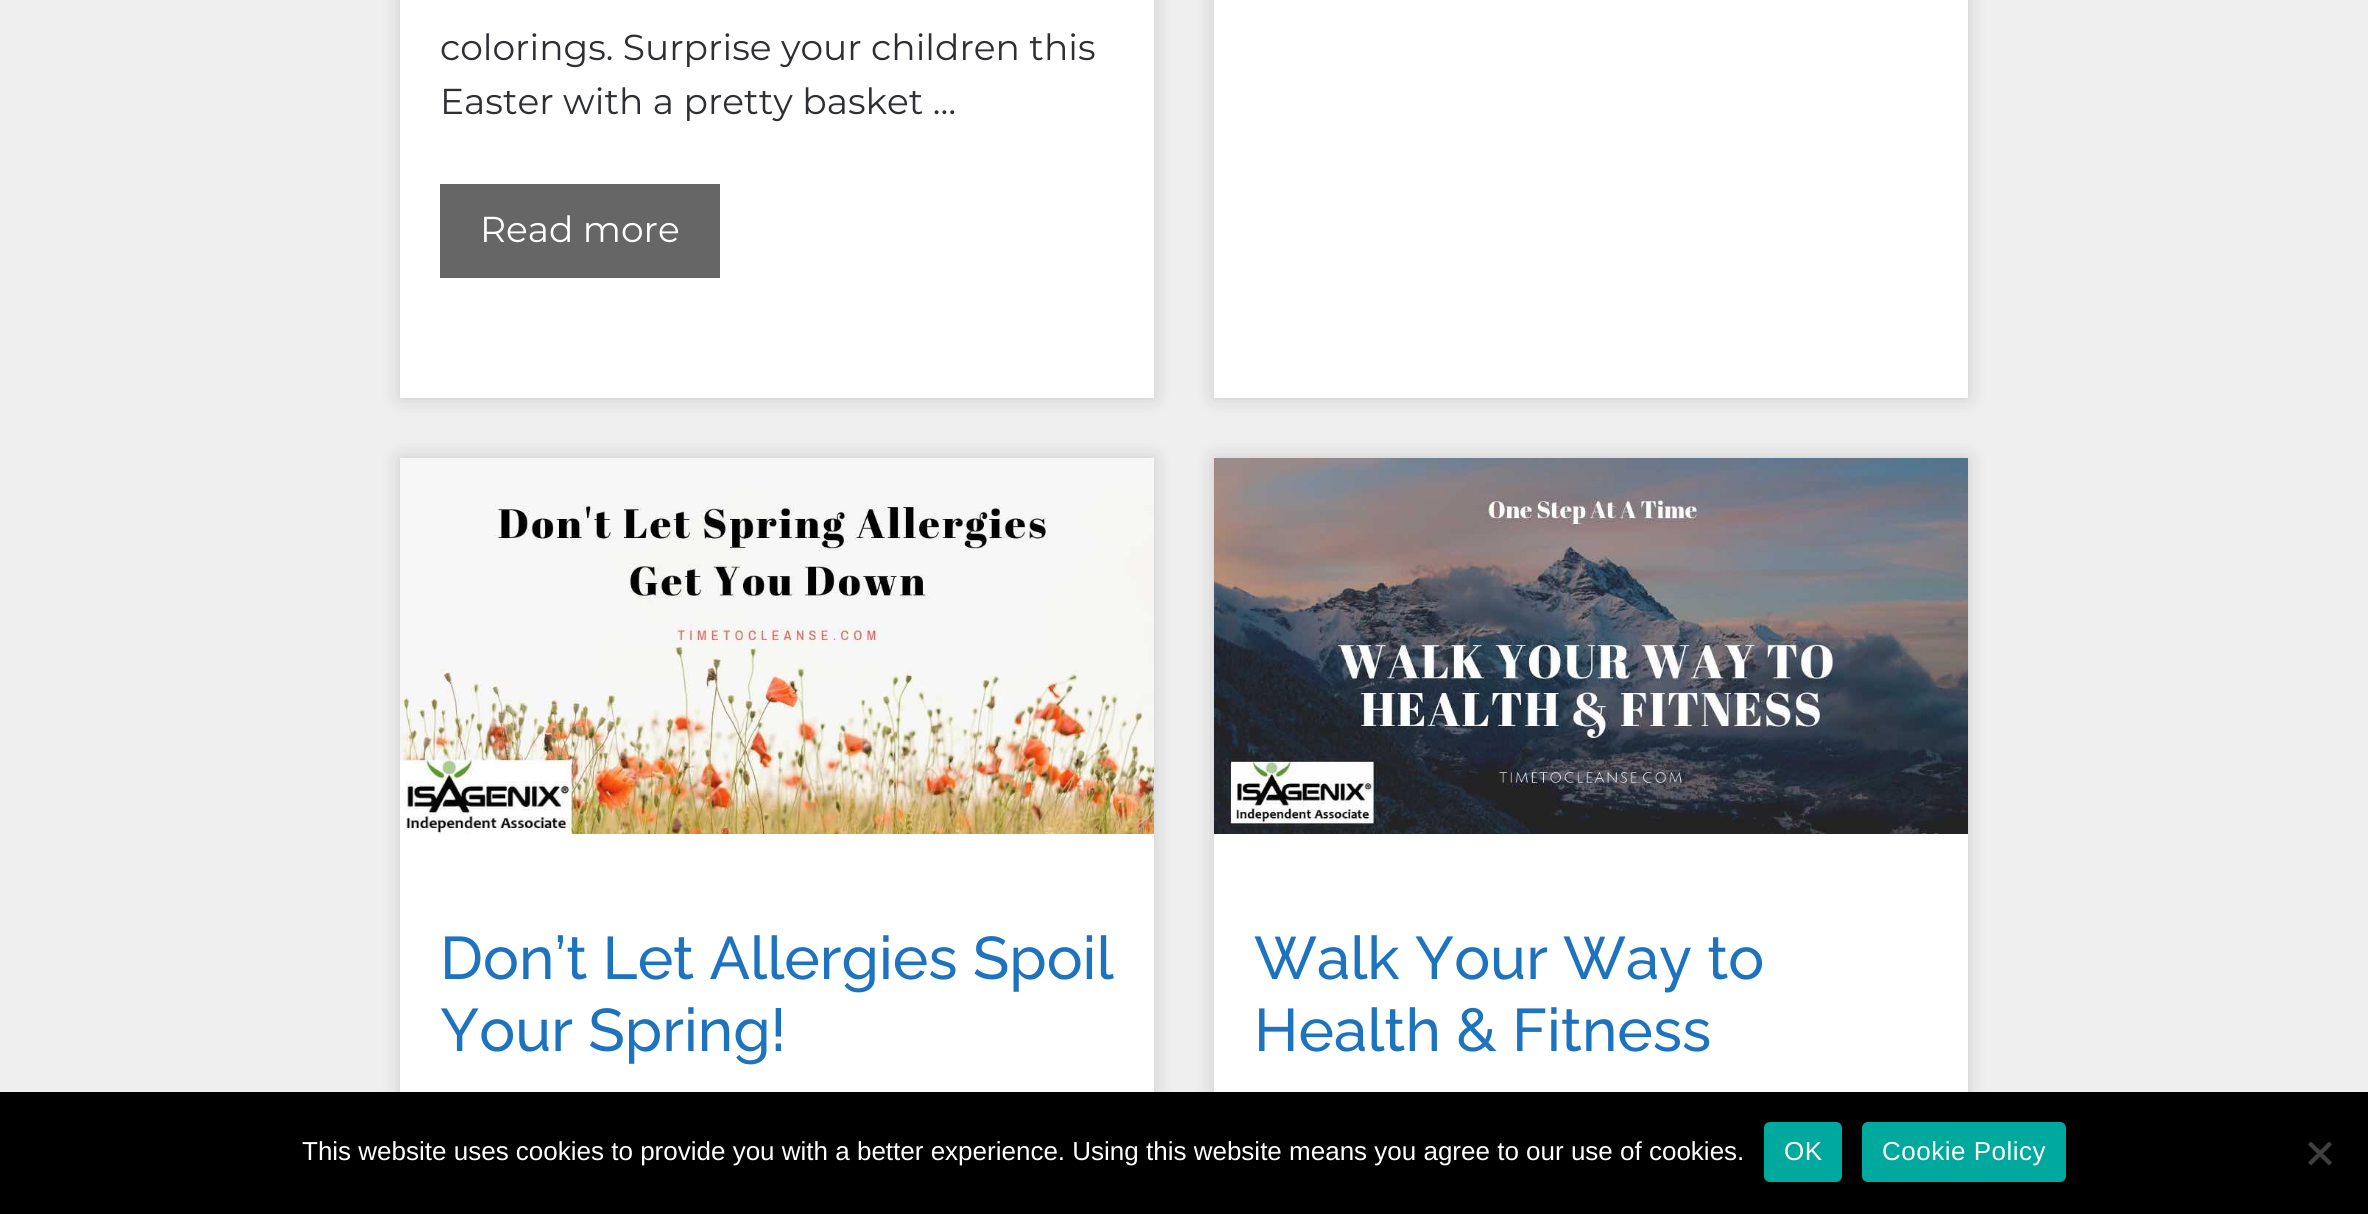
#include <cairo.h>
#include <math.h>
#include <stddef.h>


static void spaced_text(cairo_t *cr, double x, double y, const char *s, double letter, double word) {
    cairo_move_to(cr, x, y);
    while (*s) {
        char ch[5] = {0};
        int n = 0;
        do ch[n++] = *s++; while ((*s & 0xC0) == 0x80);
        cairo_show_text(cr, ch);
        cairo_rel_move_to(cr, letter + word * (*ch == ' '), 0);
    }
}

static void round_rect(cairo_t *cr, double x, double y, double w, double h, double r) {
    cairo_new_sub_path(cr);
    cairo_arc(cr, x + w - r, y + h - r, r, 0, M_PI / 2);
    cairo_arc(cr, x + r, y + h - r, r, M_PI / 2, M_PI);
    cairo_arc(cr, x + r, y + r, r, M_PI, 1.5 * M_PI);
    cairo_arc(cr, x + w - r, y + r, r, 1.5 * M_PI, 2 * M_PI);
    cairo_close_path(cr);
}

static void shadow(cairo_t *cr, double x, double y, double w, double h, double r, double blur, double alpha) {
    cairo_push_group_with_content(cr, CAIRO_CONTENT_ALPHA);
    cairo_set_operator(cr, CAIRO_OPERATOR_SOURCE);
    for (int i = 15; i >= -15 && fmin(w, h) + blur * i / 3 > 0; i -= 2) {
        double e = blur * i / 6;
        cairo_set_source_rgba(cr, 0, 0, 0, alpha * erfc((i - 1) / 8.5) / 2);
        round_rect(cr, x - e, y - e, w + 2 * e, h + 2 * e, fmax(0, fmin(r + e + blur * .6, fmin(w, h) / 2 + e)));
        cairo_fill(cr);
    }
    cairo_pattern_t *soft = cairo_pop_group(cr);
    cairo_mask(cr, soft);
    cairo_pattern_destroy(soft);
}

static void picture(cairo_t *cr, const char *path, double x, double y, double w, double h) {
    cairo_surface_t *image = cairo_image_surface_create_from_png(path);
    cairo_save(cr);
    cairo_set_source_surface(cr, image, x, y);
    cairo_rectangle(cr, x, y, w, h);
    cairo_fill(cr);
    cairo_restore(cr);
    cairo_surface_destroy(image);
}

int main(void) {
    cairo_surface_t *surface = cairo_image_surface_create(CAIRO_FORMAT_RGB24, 2368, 1214);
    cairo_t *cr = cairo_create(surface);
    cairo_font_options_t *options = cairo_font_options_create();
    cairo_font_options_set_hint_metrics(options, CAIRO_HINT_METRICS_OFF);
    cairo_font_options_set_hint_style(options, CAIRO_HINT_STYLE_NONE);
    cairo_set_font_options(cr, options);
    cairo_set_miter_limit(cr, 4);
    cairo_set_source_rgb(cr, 0.937, 0.937, 0.937);
    cairo_paint(cr);
    cairo_set_source_rgb(cr, 0, 0, 0);
    shadow(cr, 400, -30, 754, 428, 0, 10, 0.15);
    cairo_set_source_rgb(cr, 1, 1, 1);
    cairo_rectangle(cr, 400, 0, 754, 398);
    cairo_fill(cr);
    cairo_select_font_face(cr, "Montserrat", CAIRO_FONT_SLANT_NORMAL, CAIRO_FONT_WEIGHT_NORMAL);
    cairo_set_font_size(cr, 36);
    cairo_set_source_rgb(cr, 0.176, 0.184, 0.2);
    cairo_move_to(cr, 440, 60);
    cairo_show_text(cr, "colorings. Surprise your children this");
    cairo_move_to(cr, 440, 114);
    cairo_show_text(cr, "Easter with a pretty basket …");
    cairo_set_source_rgb(cr, 0.4, 0.4, 0.4);
    cairo_rectangle(cr, 440, 184, 280, 94);
    cairo_fill(cr);
    cairo_set_source_rgb(cr, 1, 1, 1);
    cairo_move_to(cr, 480, 242);
    cairo_show_text(cr, "Read more");
    cairo_set_source_rgb(cr, 0, 0, 0);
    shadow(cr, 1214, -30, 754, 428, 0, 10, 0.15);
    cairo_set_source_rgb(cr, 1, 1, 1);
    cairo_rectangle(cr, 1214, 0, 754, 398);
    cairo_fill(cr);
    cairo_set_source_rgb(cr, 0, 0, 0);
    shadow(cr, 400, 458, 754, 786, 0, 10, 0.15);
    cairo_set_source_rgb(cr, 1, 1, 1);
    cairo_rectangle(cr, 400, 834, 754, 258);
    cairo_fill(cr);
    picture(cr, "img1.png", 400, 458, 754, 376);
    cairo_select_font_face(cr, "Raleway Medium", CAIRO_FONT_SLANT_NORMAL, CAIRO_FONT_WEIGHT_NORMAL);
    cairo_set_font_size(cr, 60);
    cairo_set_source_rgb(cr, 0.118, 0.451, 0.745);
    cairo_move_to(cr, 440, 979);
    cairo_show_text(cr, "Don’t Let Allergies Spoil");
    cairo_move_to(cr, 440, 1051);
    cairo_show_text(cr, "Your Spring!");
    cairo_set_source_rgb(cr, 0, 0, 0);
    shadow(cr, 1214, 458, 754, 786, 0, 10, 0.15);
    cairo_set_source_rgb(cr, 1, 1, 1);
    cairo_rectangle(cr, 1214, 834, 754, 258);
    cairo_fill(cr);
    picture(cr, "img2.png", 1214, 458, 754, 376);
    cairo_set_source_rgb(cr, 0.118, 0.451, 0.745);
    cairo_move_to(cr, 1254, 979);
    cairo_show_text(cr, "Walk Your Way to");
    cairo_move_to(cr, 1254, 1051);
    cairo_show_text(cr, "Health & Fitness");
    cairo_set_source_rgb(cr, 0, 0, 0);
    cairo_rectangle(cr, 0, 1092, 2368, 122);
    cairo_fill(cr);
    cairo_select_font_face(cr, "Liberation Sans", CAIRO_FONT_SLANT_NORMAL, CAIRO_FONT_WEIGHT_NORMAL);
    cairo_set_font_size(cr, 26);
    cairo_set_source_rgb(cr, 1, 1, 1);
    cairo_move_to(cr, 302, 1160);
    cairo_show_text(cr, "This website uses cookies to provide you with a better experience. Using this website means you agree to our use of cookies.");
    cairo_set_source_rgb(cr, 0, 0.663, 0.616);
    round_rect(cr, 1764, 1122, 78, 60, 6);
    cairo_fill(cr);
    cairo_set_source_rgb(cr, 1, 1, 1);
    spaced_text(cr, 1784, 1160, "OK", 0.5, 0);
    cairo_set_source_rgb(cr, 0, 0.663, 0.616);
    round_rect(cr, 1862, 1122, 204, 60, 6);
    cairo_fill(cr);
    cairo_set_source_rgb(cr, 1, 1, 1);
    spaced_text(cr, 1882, 1160, "Cookie Policy", 0.5, 0);
    cairo_set_source_rgb(cr, 0.251, 0.251, 0.251);
    cairo_new_path(cr);
    cairo_move_to(cr, 2329, 1141.5);
    cairo_line_to(cr, 2332, 1144.5);
    cairo_line_to(cr, 2311, 1165.5);
    cairo_line_to(cr, 2308, 1162.5);
    cairo_close_path(cr);
    cairo_fill(cr);
    cairo_new_path(cr);
    cairo_move_to(cr, 2308, 1144.5);
    cairo_line_to(cr, 2311, 1141.5);
    cairo_line_to(cr, 2332, 1162.5);
    cairo_line_to(cr, 2329, 1165.5);
    cairo_close_path(cr);
    cairo_fill(cr);
    cairo_surface_write_to_png(surface, "page.png");
    cairo_font_options_destroy(options);
    cairo_destroy(cr);
    cairo_surface_destroy(surface);
    return 0;
}
